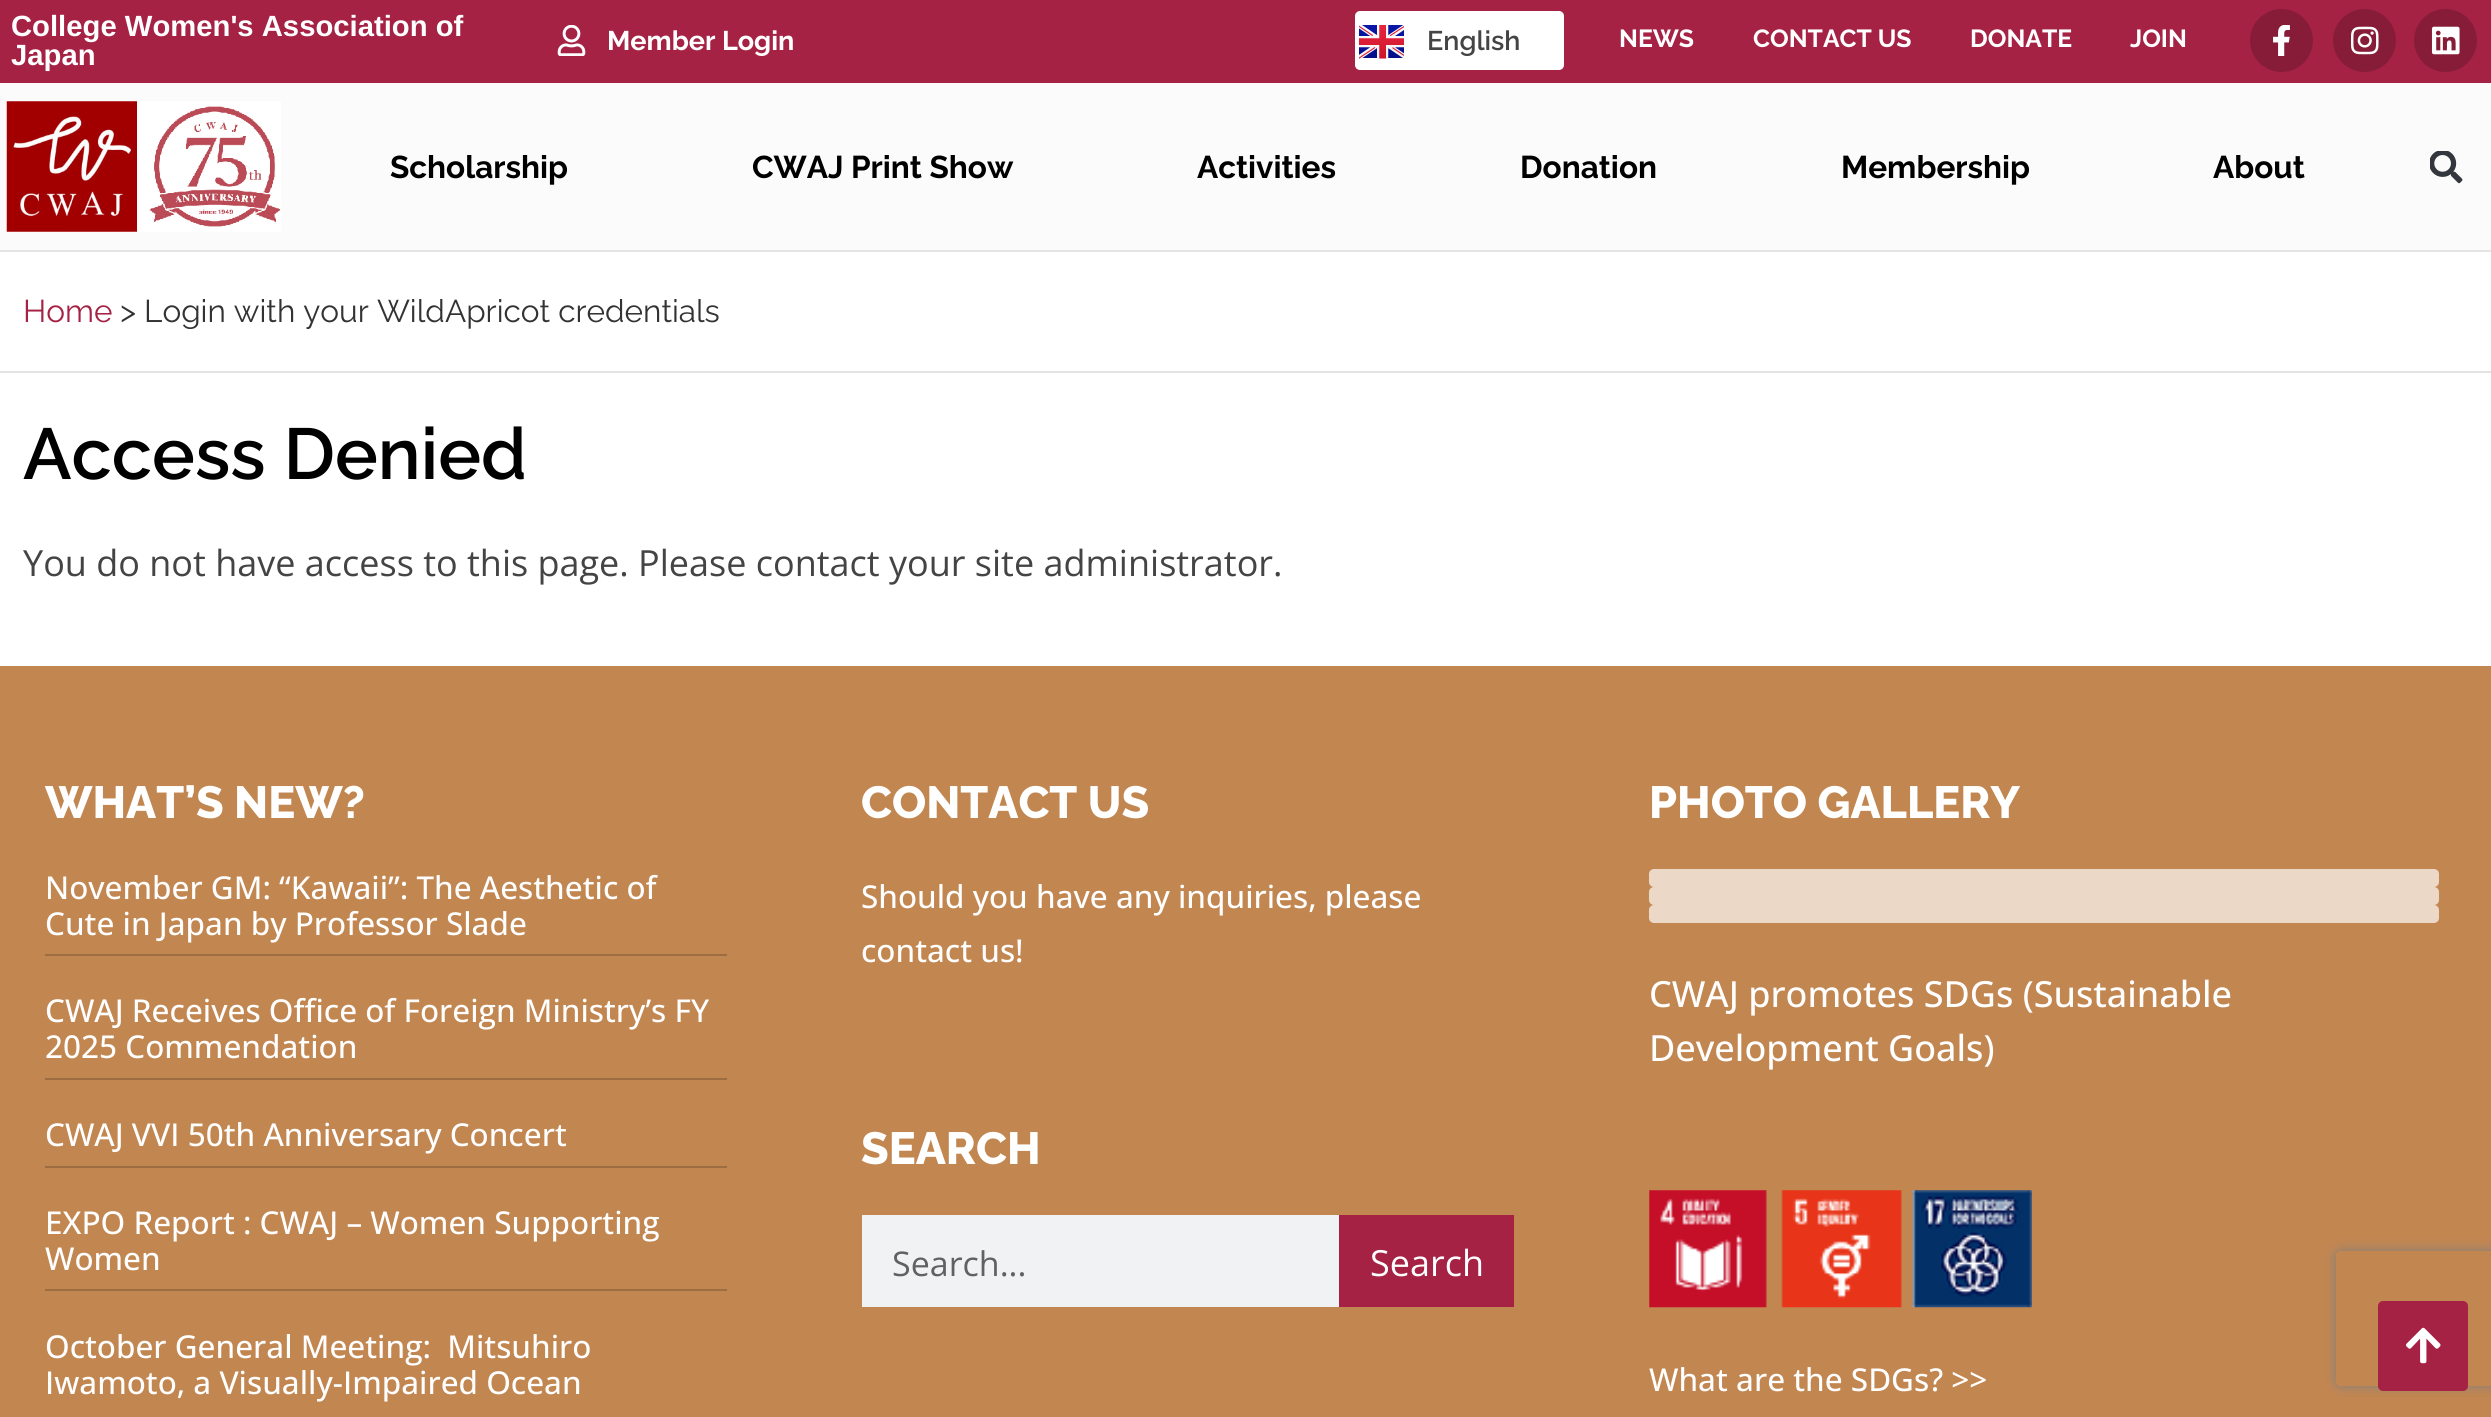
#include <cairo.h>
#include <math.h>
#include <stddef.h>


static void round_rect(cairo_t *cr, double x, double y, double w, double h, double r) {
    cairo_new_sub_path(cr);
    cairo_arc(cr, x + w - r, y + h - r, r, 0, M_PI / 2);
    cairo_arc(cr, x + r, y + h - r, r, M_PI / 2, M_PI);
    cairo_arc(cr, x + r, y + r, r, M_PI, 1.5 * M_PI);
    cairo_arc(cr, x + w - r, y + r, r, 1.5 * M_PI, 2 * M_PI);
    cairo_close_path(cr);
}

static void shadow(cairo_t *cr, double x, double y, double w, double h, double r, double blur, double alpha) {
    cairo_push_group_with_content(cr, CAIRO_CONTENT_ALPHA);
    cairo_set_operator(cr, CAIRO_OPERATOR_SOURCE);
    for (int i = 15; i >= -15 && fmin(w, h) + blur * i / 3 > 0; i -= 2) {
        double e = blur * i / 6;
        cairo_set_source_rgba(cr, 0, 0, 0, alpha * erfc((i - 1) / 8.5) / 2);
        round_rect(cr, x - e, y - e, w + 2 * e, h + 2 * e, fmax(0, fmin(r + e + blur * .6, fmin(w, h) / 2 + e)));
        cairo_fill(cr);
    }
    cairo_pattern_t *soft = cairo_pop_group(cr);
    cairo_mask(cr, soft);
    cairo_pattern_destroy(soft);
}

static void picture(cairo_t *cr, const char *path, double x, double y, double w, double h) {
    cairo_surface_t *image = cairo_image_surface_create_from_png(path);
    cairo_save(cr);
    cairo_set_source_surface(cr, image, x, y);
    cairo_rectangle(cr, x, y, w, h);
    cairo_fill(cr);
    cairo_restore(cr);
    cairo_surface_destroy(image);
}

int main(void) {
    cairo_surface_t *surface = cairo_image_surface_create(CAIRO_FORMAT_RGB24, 2491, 1417);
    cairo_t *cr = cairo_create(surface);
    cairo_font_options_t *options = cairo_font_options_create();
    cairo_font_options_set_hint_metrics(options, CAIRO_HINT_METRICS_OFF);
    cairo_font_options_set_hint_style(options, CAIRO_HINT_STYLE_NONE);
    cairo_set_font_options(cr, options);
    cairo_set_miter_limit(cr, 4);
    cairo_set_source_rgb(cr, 1, 1, 1);
    cairo_paint(cr);
    cairo_set_source_rgb(cr, 0.647, 0.133, 0.271);
    cairo_rectangle(cr, 0, 0, 2491, 83);
    cairo_fill(cr);
    cairo_select_font_face(cr, "Liberation Sans", CAIRO_FONT_SLANT_NORMAL, CAIRO_FONT_WEIGHT_BOLD);
    cairo_set_font_size(cr, 29.25);
    cairo_set_source_rgb(cr, 1, 1, 1);
    cairo_move_to(cr, 11, 36);
    cairo_show_text(cr, "College Women's Association of");
    cairo_move_to(cr, 11, 65);
    cairo_show_text(cr, "Japan");
    picture(cr, "img1.png", 557, 25, 29, 31);
    cairo_select_font_face(cr, "Raleway", CAIRO_FONT_SLANT_NORMAL, CAIRO_FONT_WEIGHT_BOLD);
    cairo_set_font_size(cr, 27);
    cairo_move_to(cr, 607, 50);
    cairo_show_text(cr, "Member Login");
    round_rect(cr, 1355, 11, 209, 59, 5);
    cairo_fill(cr);
    picture(cr, "img2.png", 1359, 25, 45, 34);
    cairo_select_font_face(cr, "Raleway SemiBold", CAIRO_FONT_SLANT_NORMAL, CAIRO_FONT_WEIGHT_NORMAL);
    cairo_set_source_rgb(cr, 0.267, 0.267, 0.267);
    cairo_move_to(cr, 1427, 50);
    cairo_show_text(cr, "English");
    cairo_select_font_face(cr, "Raleway", CAIRO_FONT_SLANT_NORMAL, CAIRO_FONT_WEIGHT_BOLD);
    cairo_set_font_size(cr, 24.75);
    cairo_set_source_rgb(cr, 1, 1, 1);
    cairo_move_to(cr, 1619, 47);
    cairo_show_text(cr, "NEWS");
    cairo_move_to(cr, 1753, 47);
    cairo_show_text(cr, "CONTACT US");
    cairo_move_to(cr, 1970, 47);
    cairo_show_text(cr, "DONATE");
    cairo_move_to(cr, 2130, 47);
    cairo_show_text(cr, "JOIN");
    cairo_set_source_rgb(cr, 0.529, 0.11, 0.22);
    cairo_new_path(cr);
    cairo_arc(cr, 2281.5, 40.5, 31.5, 0, 2 * M_PI);
    cairo_fill(cr);
    picture(cr, "img3.png", 2273, 25, 17, 31);
    cairo_arc(cr, 2364.5, 40.5, 31.5, 0, 2 * M_PI);
    cairo_fill(cr);
    picture(cr, "img4.png", 2350, 26, 29, 29);
    cairo_arc(cr, 2445.5, 40.5, 31.5, 0, 2 * M_PI);
    cairo_fill(cr);
    picture(cr, "img5.png", 2431, 26, 29, 29);
    cairo_set_source_rgb(cr, 0.984, 0.984, 0.984);
    cairo_rectangle(cr, 0, 83, 2491, 167);
    cairo_fill(cr);
    cairo_set_source_rgb(cr, 0.894, 0.894, 0.894);
    cairo_rectangle(cr, 0, 250, 2491, 2);
    cairo_fill(cr);
    picture(cr, "img6.png", 6, 101, 275, 131);
    cairo_set_font_size(cr, 31.5);
    cairo_set_source_rgb(cr, 0, 0, 0);
    cairo_move_to(cr, 390, 178);
    cairo_show_text(cr, "Scholarship");
    cairo_move_to(cr, 752, 178);
    cairo_show_text(cr, "CWAJ Print Show");
    cairo_move_to(cr, 1197, 178);
    cairo_show_text(cr, "Activities");
    cairo_move_to(cr, 1520, 178);
    cairo_show_text(cr, "Donation");
    cairo_move_to(cr, 1841, 178);
    cairo_show_text(cr, "Membership");
    cairo_move_to(cr, 2213, 178);
    cairo_show_text(cr, "About");
    picture(cr, "img7.png", 2430, 151, 33, 33);
    cairo_set_source_rgb(cr, 0.89, 0.89, 0.89);
    cairo_rectangle(cr, 0, 371, 2491, 2);
    cairo_fill(cr);
    cairo_select_font_face(cr, "Raleway", CAIRO_FONT_SLANT_NORMAL, CAIRO_FONT_WEIGHT_NORMAL);
    cairo_set_source_rgb(cr, 0.647, 0.133, 0.271);
    cairo_move_to(cr, 23, 322);
    cairo_show_text(cr, "Home");
    cairo_set_source_rgb(cr, 0.2, 0.2, 0.2);
    cairo_move_to(cr, 120, 322);
    cairo_show_text(cr, "> Login with your WildApricot credentials");
    cairo_select_font_face(cr, "Raleway SemiBold", CAIRO_FONT_SLANT_NORMAL, CAIRO_FONT_WEIGHT_NORMAL);
    cairo_set_font_size(cr, 72);
    cairo_set_source_rgb(cr, 0, 0, 0);
    cairo_move_to(cr, 23, 479);
    cairo_show_text(cr, "Access Denied");
    cairo_select_font_face(cr, "Open Sans", CAIRO_FONT_SLANT_NORMAL, CAIRO_FONT_WEIGHT_NORMAL);
    cairo_set_font_size(cr, 36);
    cairo_set_source_rgb(cr, 0.267, 0.267, 0.267);
    cairo_move_to(cr, 23, 576);
    cairo_show_text(cr, "You do not have access to this page. Please contact your site administrator.");
    cairo_set_source_rgb(cr, 0.761, 0.525, 0.318);
    cairo_rectangle(cr, 0, 666, 2491, 751);
    cairo_fill(cr);
    cairo_select_font_face(cr, "Raleway ExtraBold", CAIRO_FONT_SLANT_NORMAL, CAIRO_FONT_WEIGHT_NORMAL);
    cairo_set_font_size(cr, 45);
    cairo_set_source_rgb(cr, 1, 1, 1);
    cairo_move_to(cr, 45, 818);
    cairo_show_text(cr, "WHAT’S NEW?");
    cairo_set_source_rgb(cr, 0.616, 0.424, 0.255);
    cairo_rectangle(cr, 45, 954, 682, 2);
    cairo_fill(cr);
    cairo_select_font_face(cr, "Open Sans Medium", CAIRO_FONT_SLANT_NORMAL, CAIRO_FONT_WEIGHT_NORMAL);
    cairo_set_font_size(cr, 31.5);
    cairo_set_source_rgb(cr, 1, 1, 1);
    cairo_move_to(cr, 45, 899);
    cairo_show_text(cr, "November GM: “Kawaii”: The Aesthetic of");
    cairo_move_to(cr, 45, 935);
    cairo_show_text(cr, "Cute in Japan by Professor Slade");
    cairo_set_source_rgb(cr, 0.616, 0.424, 0.255);
    cairo_rectangle(cr, 45, 1078, 682, 2);
    cairo_fill(cr);
    cairo_set_source_rgb(cr, 1, 1, 1);
    cairo_move_to(cr, 45, 1022);
    cairo_show_text(cr, "CWAJ Receives Office of Foreign Ministry’s FY");
    cairo_move_to(cr, 45, 1058);
    cairo_show_text(cr, "2025 Commendation");
    cairo_set_source_rgb(cr, 0.616, 0.424, 0.255);
    cairo_rectangle(cr, 45, 1166, 682, 2);
    cairo_fill(cr);
    cairo_set_source_rgb(cr, 1, 1, 1);
    cairo_move_to(cr, 45, 1146);
    cairo_show_text(cr, "CWAJ VVI 50th Anniversary Concert");
    cairo_set_source_rgb(cr, 0.616, 0.424, 0.255);
    cairo_rectangle(cr, 45, 1289, 682, 2);
    cairo_fill(cr);
    cairo_set_source_rgb(cr, 1, 1, 1);
    cairo_move_to(cr, 45, 1234);
    cairo_show_text(cr, "EXPO Report : CWAJ – Women Supporting");
    cairo_move_to(cr, 45, 1270);
    cairo_show_text(cr, "Women");
    cairo_move_to(cr, 45, 1358);
    cairo_show_text(cr, "October General Meeting:  Mitsuhiro");
    cairo_move_to(cr, 45, 1394);
    cairo_show_text(cr, "Iwamoto, a Visually-Impaired Ocean");
    cairo_select_font_face(cr, "Raleway ExtraBold", CAIRO_FONT_SLANT_NORMAL, CAIRO_FONT_WEIGHT_NORMAL);
    cairo_set_font_size(cr, 45);
    cairo_move_to(cr, 861, 818);
    cairo_show_text(cr, "CONTACT US");
    cairo_select_font_face(cr, "Open Sans Medium", CAIRO_FONT_SLANT_NORMAL, CAIRO_FONT_WEIGHT_NORMAL);
    cairo_set_font_size(cr, 31.5);
    cairo_move_to(cr, 861, 908);
    cairo_show_text(cr, "Should you have any inquiries, please");
    cairo_move_to(cr, 861, 962);
    cairo_show_text(cr, "contact us!");
    cairo_select_font_face(cr, "Raleway ExtraBold", CAIRO_FONT_SLANT_NORMAL, CAIRO_FONT_WEIGHT_NORMAL);
    cairo_set_font_size(cr, 45);
    cairo_move_to(cr, 861, 1164);
    cairo_show_text(cr, "SEARCH");
    cairo_set_source_rgb(cr, 0.945, 0.949, 0.953);
    cairo_rectangle(cr, 862, 1215, 477, 92);
    cairo_fill(cr);
    cairo_select_font_face(cr, "Open Sans", CAIRO_FONT_SLANT_NORMAL, CAIRO_FONT_WEIGHT_NORMAL);
    cairo_set_font_size(cr, 34);
    cairo_set_source_rgb(cr, 0.376, 0.38, 0.38);
    cairo_move_to(cr, 892, 1276);
    cairo_show_text(cr, "Search...");
    cairo_set_source_rgb(cr, 0.647, 0.133, 0.271);
    cairo_rectangle(cr, 1339, 1215, 175, 92);
    cairo_fill(cr);
    cairo_set_font_size(cr, 36);
    cairo_set_source_rgb(cr, 1, 1, 1);
    cairo_move_to(cr, 1370, 1276);
    cairo_show_text(cr, "Search");
    cairo_select_font_face(cr, "Raleway ExtraBold", CAIRO_FONT_SLANT_NORMAL, CAIRO_FONT_WEIGHT_NORMAL);
    cairo_set_font_size(cr, 45);
    cairo_move_to(cr, 1649, 818);
    cairo_show_text(cr, "PHOTO GALLERY");
    cairo_set_source_rgb(cr, 0.922, 0.847, 0.78);
    round_rect(cr, 1649, 869, 790, 18, 5);
    cairo_fill(cr);
    round_rect(cr, 1649, 887, 790, 18, 5);
    cairo_fill(cr);
    round_rect(cr, 1649, 905, 790, 18, 5);
    cairo_fill(cr);
    cairo_select_font_face(cr, "Open Sans Medium", CAIRO_FONT_SLANT_NORMAL, CAIRO_FONT_WEIGHT_NORMAL);
    cairo_set_font_size(cr, 36);
    cairo_set_source_rgb(cr, 1, 1, 1);
    cairo_move_to(cr, 1649, 1007);
    cairo_show_text(cr, "CWAJ promotes SDGs (Sustainable");
    cairo_move_to(cr, 1649, 1061);
    cairo_show_text(cr, "Development Goals)");
    picture(cr, "img8.png", 1649, 1190, 383, 118);
    cairo_set_font_size(cr, 31.5);
    cairo_move_to(cr, 1649, 1391);
    cairo_show_text(cr, "What are the SDGs? >>");
    cairo_save(cr);
    cairo_set_fill_rule(cr, CAIRO_FILL_RULE_EVEN_ODD);
    cairo_new_path(cr);
    cairo_move_to(cr, 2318, 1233);
    cairo_line_to(cr, 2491, 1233);
    cairo_line_to(cr, 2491, 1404);
    cairo_line_to(cr, 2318, 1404);
    cairo_close_path(cr);
    cairo_move_to(cr, 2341, 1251);
    cairo_line_to(cr, 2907, 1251);
    cairo_curve_to(cr, 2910, 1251, 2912, 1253, 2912, 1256);
    cairo_line_to(cr, 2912, 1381);
    cairo_curve_to(cr, 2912, 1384, 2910, 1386, 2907, 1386);
    cairo_line_to(cr, 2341, 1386);
    cairo_curve_to(cr, 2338, 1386, 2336, 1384, 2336, 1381);
    cairo_line_to(cr, 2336, 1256);
    cairo_curve_to(cr, 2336, 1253, 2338, 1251, 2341, 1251);
    cairo_close_path(cr);
    cairo_clip(cr);
    cairo_set_source_rgb(cr, 0.502, 0.502, 0.502);
    shadow(cr, 2336, 1251, 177, 135, 5, 5.5, 1);
    cairo_restore(cr);
    cairo_set_source_rgb(cr, 0.647, 0.133, 0.271);
    round_rect(cr, 2378, 1301, 90, 90, 5);
    cairo_fill(cr);
    picture(cr, "img9.png", 2406, 1327, 35, 37);
    cairo_surface_write_to_png(surface, "page.png");
    cairo_font_options_destroy(options);
    cairo_destroy(cr);
    cairo_surface_destroy(surface);
    return 0;
}
